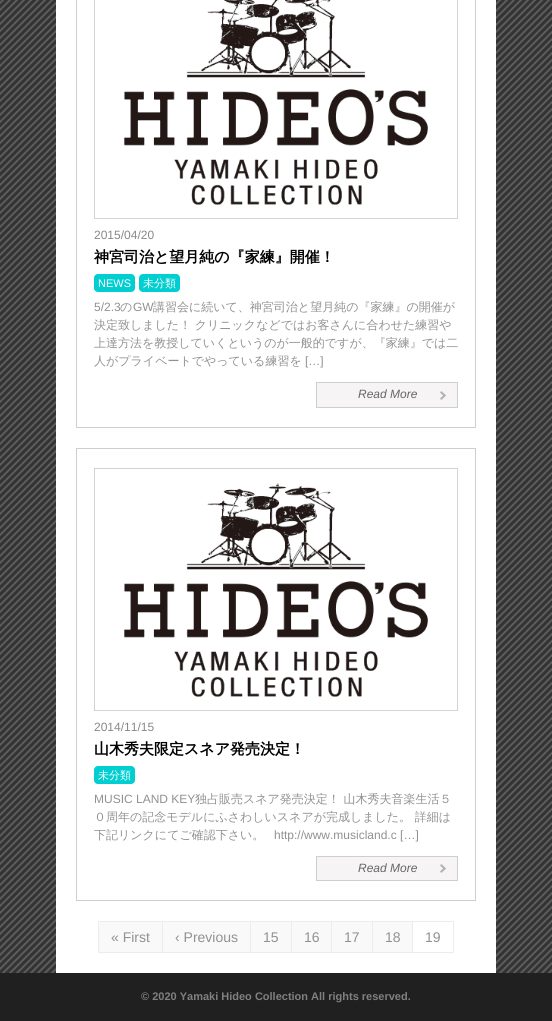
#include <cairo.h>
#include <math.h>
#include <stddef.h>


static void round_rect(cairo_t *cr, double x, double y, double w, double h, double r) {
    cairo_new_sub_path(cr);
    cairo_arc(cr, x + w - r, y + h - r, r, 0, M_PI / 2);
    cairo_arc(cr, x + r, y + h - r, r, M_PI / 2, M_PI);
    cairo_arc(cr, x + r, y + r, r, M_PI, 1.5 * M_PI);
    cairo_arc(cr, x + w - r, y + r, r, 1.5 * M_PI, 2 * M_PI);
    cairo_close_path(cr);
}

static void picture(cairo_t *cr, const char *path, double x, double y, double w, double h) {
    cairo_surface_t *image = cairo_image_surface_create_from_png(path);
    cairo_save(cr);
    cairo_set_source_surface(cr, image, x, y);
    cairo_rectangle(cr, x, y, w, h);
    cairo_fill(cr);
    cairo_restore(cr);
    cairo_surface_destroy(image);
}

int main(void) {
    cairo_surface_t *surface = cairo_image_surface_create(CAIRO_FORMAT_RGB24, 552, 1021);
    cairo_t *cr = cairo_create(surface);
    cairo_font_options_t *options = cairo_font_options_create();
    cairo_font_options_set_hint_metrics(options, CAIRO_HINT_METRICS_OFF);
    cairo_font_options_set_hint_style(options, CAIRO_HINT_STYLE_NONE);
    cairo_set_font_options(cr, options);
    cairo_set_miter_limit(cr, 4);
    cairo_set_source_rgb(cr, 1, 1, 1);
    cairo_paint(cr);
    picture(cr, "img1.png", 0, 0, 552, 973);
    cairo_set_source_rgb(cr, 1, 1, 1);
    cairo_rectangle(cr, 56, 0, 440, 973);
    cairo_fill(cr);
    cairo_rectangle(cr, 76.5, -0.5, 399, 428);
    cairo_set_source_rgb(cr, 0.808, 0.808, 0.812);
    cairo_set_line_width(cr, 1);
    cairo_stroke(cr);
    picture(cr, "img2.png", 94, 0, 364, 219);
    cairo_select_font_face(cr, "Liberation Sans", CAIRO_FONT_SLANT_NORMAL, CAIRO_FONT_WEIGHT_NORMAL);
    cairo_set_font_size(cr, 12);
    cairo_set_source_rgb(cr, 0.533, 0.533, 0.533);
    cairo_move_to(cr, 94, 239);
    cairo_show_text(cr, "2015/04/20");
    cairo_select_font_face(cr, "WenQuanYi Zen Hei", CAIRO_FONT_SLANT_NORMAL, CAIRO_FONT_WEIGHT_BOLD);
    cairo_set_font_size(cr, 15);
    cairo_set_source_rgb(cr, 0, 0, 0);
    cairo_move_to(cr, 94, 262);
    cairo_show_text(cr, "神宮司治と望月純の『家練』開催！");
    cairo_set_source_rgb(cr, 0, 0.808, 0.82);
    round_rect(cr, 94, 274, 41, 18, 4);
    cairo_fill(cr);
    cairo_select_font_face(cr, "Liberation Sans", CAIRO_FONT_SLANT_NORMAL, CAIRO_FONT_WEIGHT_NORMAL);
    cairo_set_font_size(cr, 11);
    cairo_set_source_rgb(cr, 1, 1, 1);
    cairo_move_to(cr, 98, 287);
    cairo_show_text(cr, "NEWS");
    cairo_set_source_rgb(cr, 0, 0.808, 0.82);
    round_rect(cr, 139, 274, 41, 18, 4);
    cairo_fill(cr);
    cairo_select_font_face(cr, "WenQuanYi Zen Hei Medium", CAIRO_FONT_SLANT_NORMAL, CAIRO_FONT_WEIGHT_NORMAL);
    cairo_set_source_rgb(cr, 1, 1, 1);
    cairo_move_to(cr, 143, 287);
    cairo_show_text(cr, "未分類");
    cairo_select_font_face(cr, "Liberation Sans", CAIRO_FONT_SLANT_NORMAL, CAIRO_FONT_WEIGHT_NORMAL);
    cairo_set_font_size(cr, 12);
    cairo_set_source_rgb(cr, 0.569, 0.569, 0.569);
    cairo_move_to(cr, 94, 311);
    cairo_show_text(cr, "5/2.3");
    cairo_select_font_face(cr, "WenQuanYi Zen Hei Medium", CAIRO_FONT_SLANT_NORMAL, CAIRO_FONT_WEIGHT_NORMAL);
    cairo_move_to(cr, 120, 311);
    cairo_show_text(cr, "の");
    cairo_select_font_face(cr, "Liberation Sans", CAIRO_FONT_SLANT_NORMAL, CAIRO_FONT_WEIGHT_NORMAL);
    cairo_move_to(cr, 133, 311);
    cairo_show_text(cr, "GW");
    cairo_select_font_face(cr, "WenQuanYi Zen Hei Medium", CAIRO_FONT_SLANT_NORMAL, CAIRO_FONT_WEIGHT_NORMAL);
    cairo_move_to(cr, 153, 311);
    cairo_show_text(cr, "講習会に続いて、神宮司治と望月純の『家練』の開催が");
    cairo_move_to(cr, 94, 329);
    cairo_show_text(cr, "決定致しました！ クリニックなどではお客さんに合わせた練習や");
    cairo_move_to(cr, 94, 347);
    cairo_show_text(cr, "上達方法を教授していくというのが一般的ですが、『家練』では二");
    cairo_move_to(cr, 94, 365);
    cairo_show_text(cr, "人がプライベートでやっている練習を");
    cairo_select_font_face(cr, "Liberation Sans", CAIRO_FONT_SLANT_NORMAL, CAIRO_FONT_WEIGHT_NORMAL);
    cairo_move_to(cr, 305, 365);
    cairo_show_text(cr, "[…]");
    cairo_set_source_rgb(cr, 0.961, 0.957, 0.957);
    cairo_rectangle(cr, 317, 383, 140, 24);
    cairo_fill(cr);
    picture(cr, "img3.png", 440, 391, 6, 9);
    cairo_rectangle(cr, 316.5, 382.5, 141, 25);
    cairo_set_source_rgb(cr, 0.808, 0.808, 0.812);
    cairo_stroke(cr);
    cairo_select_font_face(cr, "Liberation Sans", CAIRO_FONT_SLANT_ITALIC, CAIRO_FONT_WEIGHT_NORMAL);
    cairo_set_source_rgb(cr, 0.4, 0.4, 0.4);
    cairo_move_to(cr, 358, 398);
    cairo_show_text(cr, "Read More");
    cairo_rectangle(cr, 76.5, 448.5, 399, 452);
    cairo_set_source_rgb(cr, 0.808, 0.808, 0.812);
    cairo_stroke(cr);
    picture(cr, "img4.png", 94, 468, 364, 243);
    cairo_select_font_face(cr, "Liberation Sans", CAIRO_FONT_SLANT_NORMAL, CAIRO_FONT_WEIGHT_NORMAL);
    cairo_set_source_rgb(cr, 0.533, 0.533, 0.533);
    cairo_move_to(cr, 94, 731);
    cairo_show_text(cr, "2014/11/15");
    cairo_select_font_face(cr, "WenQuanYi Zen Hei", CAIRO_FONT_SLANT_NORMAL, CAIRO_FONT_WEIGHT_BOLD);
    cairo_set_font_size(cr, 15);
    cairo_set_source_rgb(cr, 0, 0, 0);
    cairo_move_to(cr, 94, 754);
    cairo_show_text(cr, "山木秀夫限定スネア発売決定！");
    cairo_set_source_rgb(cr, 0, 0.808, 0.82);
    round_rect(cr, 94, 766, 41, 18, 4);
    cairo_fill(cr);
    cairo_select_font_face(cr, "WenQuanYi Zen Hei Medium", CAIRO_FONT_SLANT_NORMAL, CAIRO_FONT_WEIGHT_NORMAL);
    cairo_set_font_size(cr, 11);
    cairo_set_source_rgb(cr, 1, 1, 1);
    cairo_move_to(cr, 98, 779);
    cairo_show_text(cr, "未分類");
    cairo_select_font_face(cr, "Liberation Sans", CAIRO_FONT_SLANT_NORMAL, CAIRO_FONT_WEIGHT_NORMAL);
    cairo_set_font_size(cr, 12);
    cairo_set_source_rgb(cr, 0.569, 0.569, 0.569);
    cairo_move_to(cr, 94, 803);
    cairo_show_text(cr, "MUSIC LAND KEY");
    cairo_select_font_face(cr, "WenQuanYi Zen Hei Medium", CAIRO_FONT_SLANT_NORMAL, CAIRO_FONT_WEIGHT_NORMAL);
    cairo_move_to(cr, 195, 803);
    cairo_show_text(cr, "独占販売スネア発売決定！ 山木秀夫音楽生活５");
    cairo_move_to(cr, 94, 821);
    cairo_show_text(cr, "０周年の記念モデルにふさわしいスネアが完成しました。 詳細は");
    cairo_move_to(cr, 94, 839);
    cairo_show_text(cr, "下記リンクにてご確認下さい。");
    cairo_select_font_face(cr, "Liberation Sans", CAIRO_FONT_SLANT_NORMAL, CAIRO_FONT_WEIGHT_NORMAL);
    cairo_move_to(cr, 274, 839);
    cairo_show_text(cr, "http://www.musicland.c […]");
    cairo_set_source_rgb(cr, 0.961, 0.957, 0.957);
    cairo_rectangle(cr, 317, 857, 140, 23);
    cairo_fill(cr);
    picture(cr, "img3.png", 440, 864, 6, 9);
    cairo_rectangle(cr, 316.5, 856.5, 141, 24);
    cairo_set_source_rgb(cr, 0.808, 0.808, 0.812);
    cairo_stroke(cr);
    cairo_select_font_face(cr, "Liberation Sans", CAIRO_FONT_SLANT_ITALIC, CAIRO_FONT_WEIGHT_NORMAL);
    cairo_set_source_rgb(cr, 0.4, 0.4, 0.4);
    cairo_move_to(cr, 358, 872);
    cairo_show_text(cr, "Read More");
    cairo_set_source_rgb(cr, 0.976, 0.976, 0.976);
    cairo_rectangle(cr, 99, 922, 63, 30);
    cairo_fill(cr);
    cairo_set_source_rgb(cr, 0.925, 0.925, 0.925);
    cairo_rectangle(cr, 98, 921, 314, 1);
    cairo_fill(cr);
    cairo_rectangle(cr, 98, 952, 314, 1);
    cairo_fill(cr);
    cairo_rectangle(cr, 98, 921, 1, 32);
    cairo_fill(cr);
    cairo_select_font_face(cr, "Liberation Sans", CAIRO_FONT_SLANT_NORMAL, CAIRO_FONT_WEIGHT_NORMAL);
    cairo_set_font_size(cr, 14);
    cairo_set_source_rgb(cr, 0.569, 0.569, 0.569);
    cairo_move_to(cr, 111, 942);
    cairo_show_text(cr, "« First");
    cairo_set_source_rgb(cr, 0.976, 0.976, 0.976);
    cairo_rectangle(cr, 163, 922, 87, 30);
    cairo_fill(cr);
    cairo_set_source_rgb(cr, 0.925, 0.925, 0.925);
    cairo_rectangle(cr, 162, 921, 1, 32);
    cairo_fill(cr);
    cairo_set_source_rgb(cr, 0.569, 0.569, 0.569);
    cairo_move_to(cr, 175, 942);
    cairo_show_text(cr, "‹ Previous");
    cairo_set_source_rgb(cr, 0.976, 0.976, 0.976);
    cairo_rectangle(cr, 251, 922, 40, 30);
    cairo_fill(cr);
    cairo_set_source_rgb(cr, 0.925, 0.925, 0.925);
    cairo_rectangle(cr, 250, 921, 1, 32);
    cairo_fill(cr);
    cairo_set_source_rgb(cr, 0.569, 0.569, 0.569);
    cairo_move_to(cr, 263, 942);
    cairo_show_text(cr, "15");
    cairo_set_source_rgb(cr, 0.976, 0.976, 0.976);
    cairo_rectangle(cr, 292, 922, 39, 30);
    cairo_fill(cr);
    cairo_set_source_rgb(cr, 0.925, 0.925, 0.925);
    cairo_rectangle(cr, 291, 921, 1, 32);
    cairo_fill(cr);
    cairo_set_source_rgb(cr, 0.569, 0.569, 0.569);
    cairo_move_to(cr, 304, 942);
    cairo_show_text(cr, "16");
    cairo_set_source_rgb(cr, 0.976, 0.976, 0.976);
    cairo_rectangle(cr, 332, 922, 40, 30);
    cairo_fill(cr);
    cairo_set_source_rgb(cr, 0.925, 0.925, 0.925);
    cairo_rectangle(cr, 331, 921, 1, 32);
    cairo_fill(cr);
    cairo_set_source_rgb(cr, 0.569, 0.569, 0.569);
    cairo_move_to(cr, 344, 942);
    cairo_show_text(cr, "17");
    cairo_set_source_rgb(cr, 0.976, 0.976, 0.976);
    cairo_rectangle(cr, 373, 922, 39, 30);
    cairo_fill(cr);
    cairo_set_source_rgb(cr, 0.925, 0.925, 0.925);
    cairo_rectangle(cr, 372, 921, 1, 32);
    cairo_fill(cr);
    cairo_set_source_rgb(cr, 0.569, 0.569, 0.569);
    cairo_move_to(cr, 385, 942);
    cairo_show_text(cr, "18");
    cairo_rectangle(cr, 412.5, 921.5, 41, 31);
    cairo_set_source_rgb(cr, 0.925, 0.925, 0.925);
    cairo_stroke(cr);
    cairo_set_source_rgb(cr, 0.569, 0.569, 0.569);
    cairo_move_to(cr, 425, 942);
    cairo_show_text(cr, "19");
    cairo_set_source_rgb(cr, 0.125, 0.125, 0.125);
    cairo_rectangle(cr, 0, 973, 552, 48);
    cairo_fill(cr);
    cairo_select_font_face(cr, "Liberation Sans", CAIRO_FONT_SLANT_NORMAL, CAIRO_FONT_WEIGHT_BOLD);
    cairo_set_font_size(cr, 11);
    cairo_set_source_rgb(cr, 0.502, 0.502, 0.502);
    cairo_move_to(cr, 141, 1000);
    cairo_show_text(cr, "© 2020 Yamaki Hideo Collection All rights reserved.");
    cairo_surface_write_to_png(surface, "page.png");
    cairo_font_options_destroy(options);
    cairo_destroy(cr);
    cairo_surface_destroy(surface);
    return 0;
}
